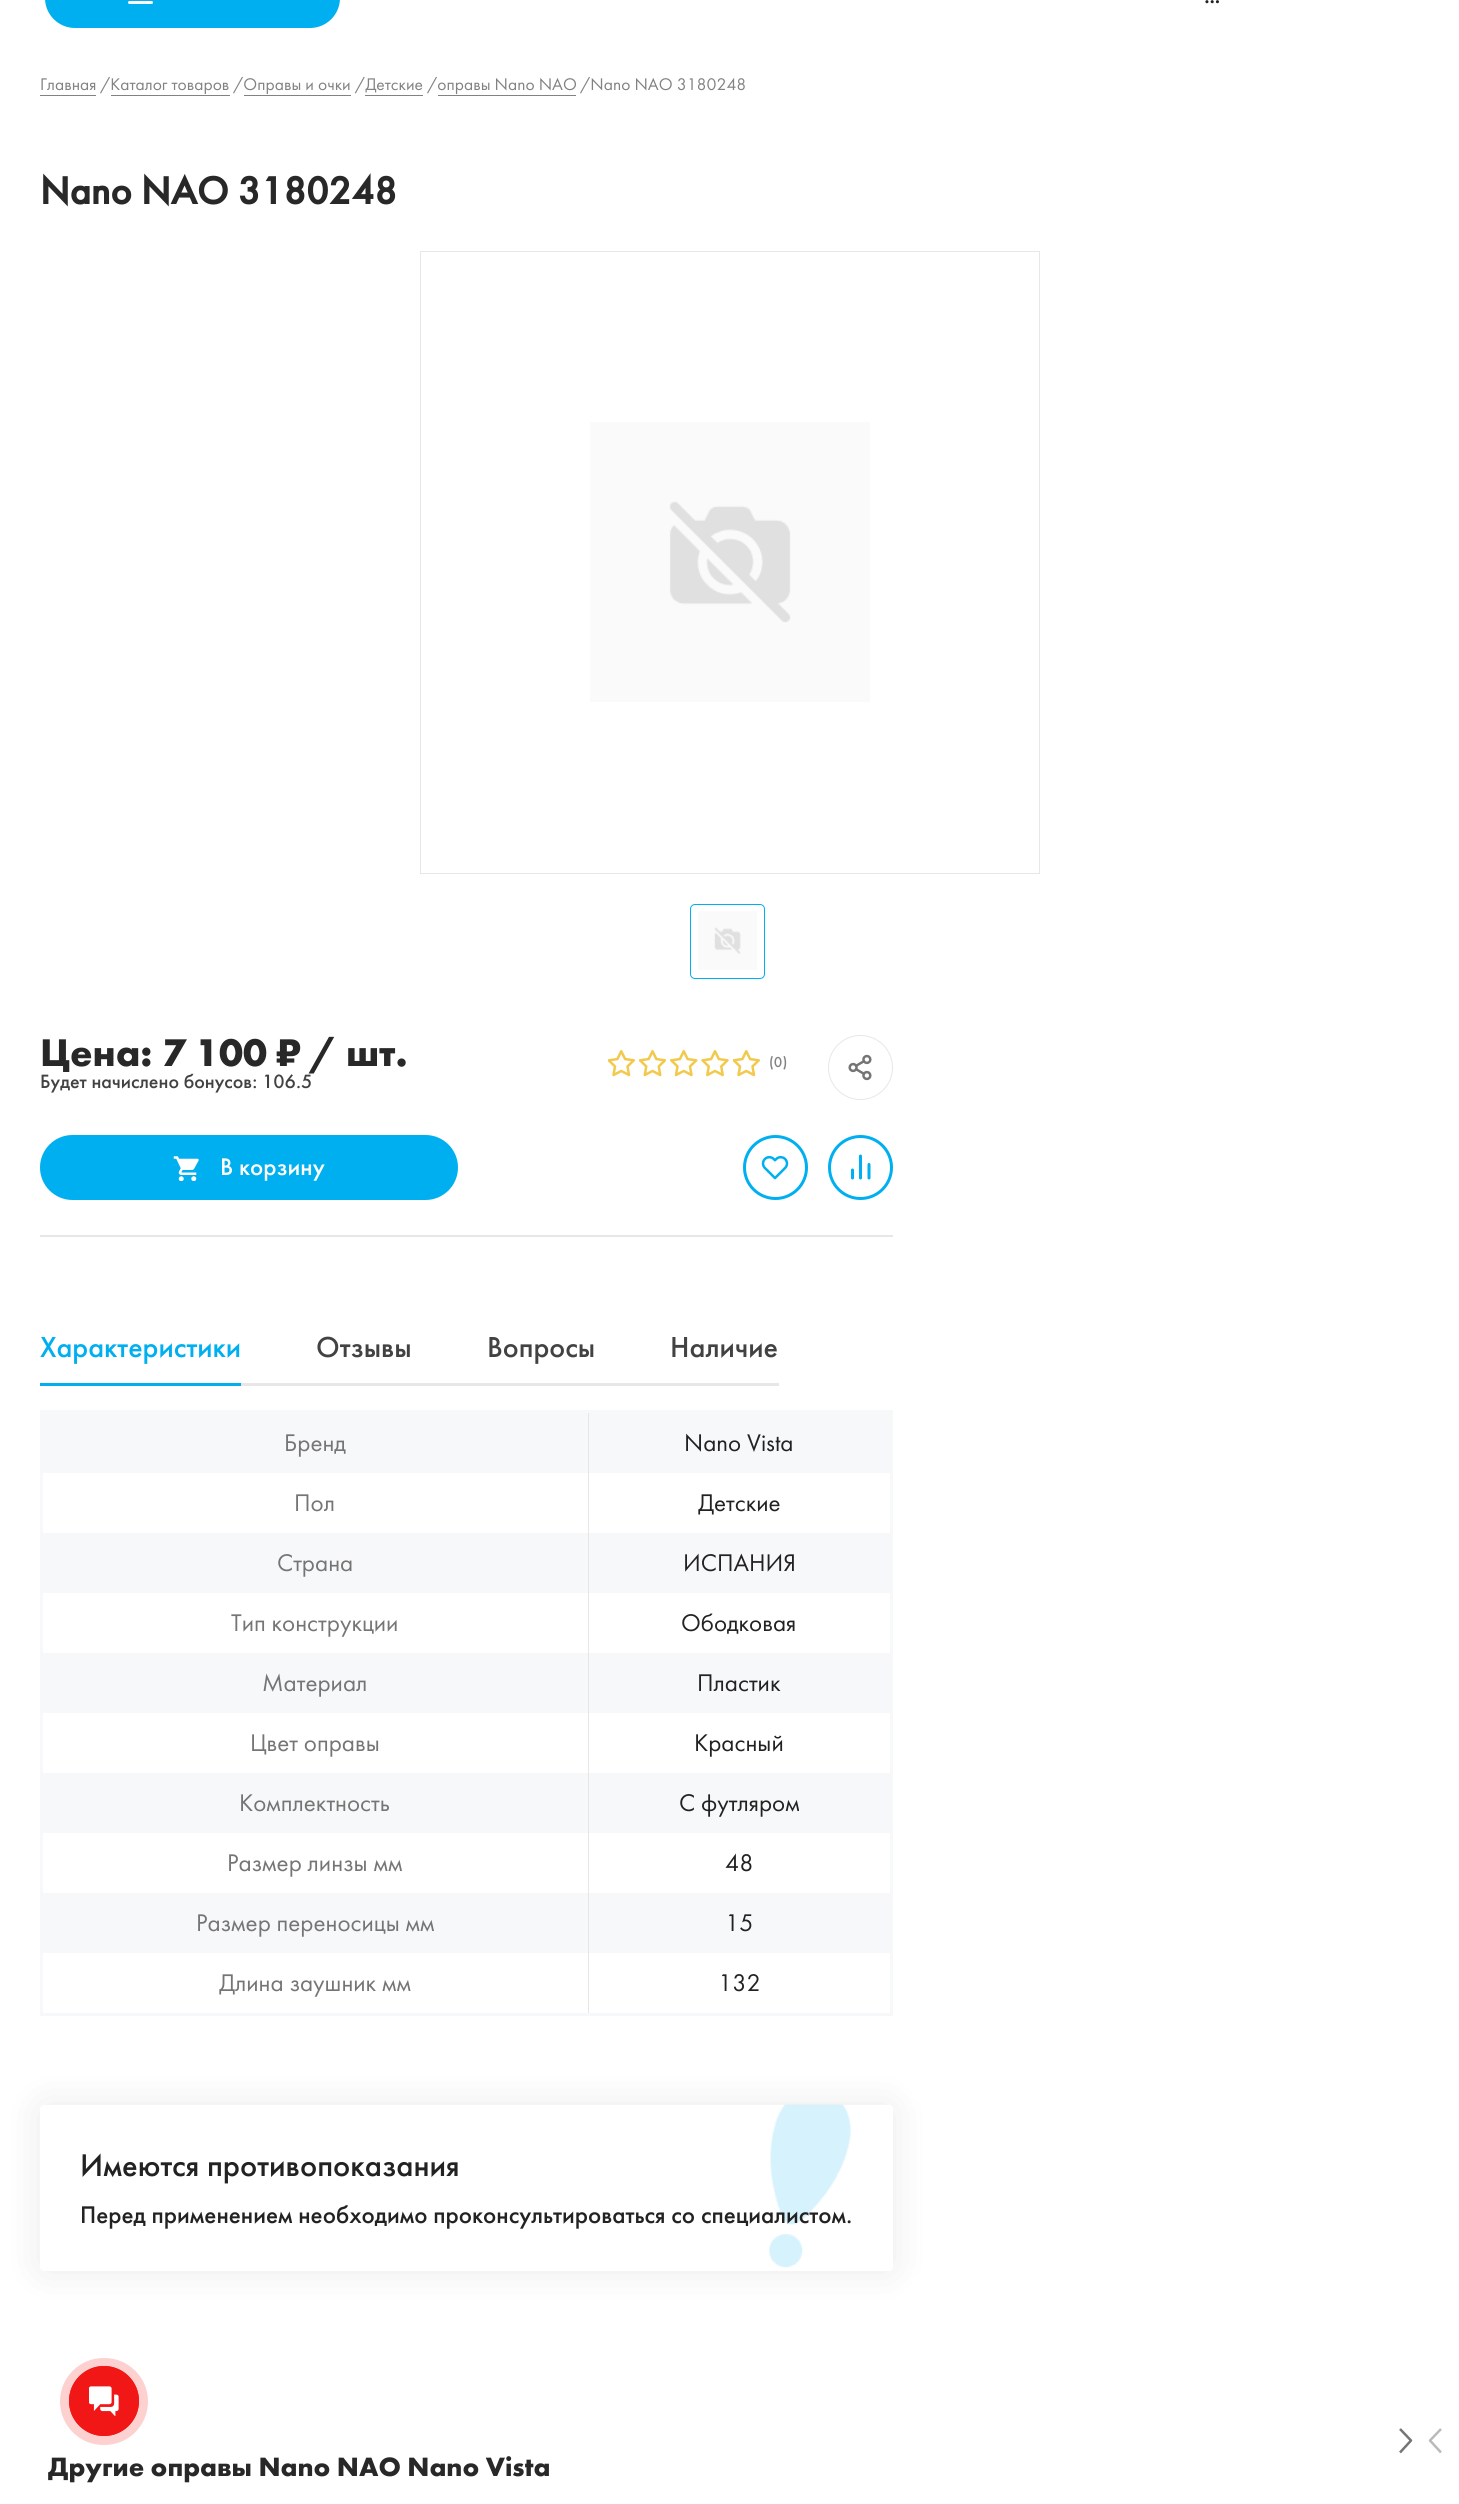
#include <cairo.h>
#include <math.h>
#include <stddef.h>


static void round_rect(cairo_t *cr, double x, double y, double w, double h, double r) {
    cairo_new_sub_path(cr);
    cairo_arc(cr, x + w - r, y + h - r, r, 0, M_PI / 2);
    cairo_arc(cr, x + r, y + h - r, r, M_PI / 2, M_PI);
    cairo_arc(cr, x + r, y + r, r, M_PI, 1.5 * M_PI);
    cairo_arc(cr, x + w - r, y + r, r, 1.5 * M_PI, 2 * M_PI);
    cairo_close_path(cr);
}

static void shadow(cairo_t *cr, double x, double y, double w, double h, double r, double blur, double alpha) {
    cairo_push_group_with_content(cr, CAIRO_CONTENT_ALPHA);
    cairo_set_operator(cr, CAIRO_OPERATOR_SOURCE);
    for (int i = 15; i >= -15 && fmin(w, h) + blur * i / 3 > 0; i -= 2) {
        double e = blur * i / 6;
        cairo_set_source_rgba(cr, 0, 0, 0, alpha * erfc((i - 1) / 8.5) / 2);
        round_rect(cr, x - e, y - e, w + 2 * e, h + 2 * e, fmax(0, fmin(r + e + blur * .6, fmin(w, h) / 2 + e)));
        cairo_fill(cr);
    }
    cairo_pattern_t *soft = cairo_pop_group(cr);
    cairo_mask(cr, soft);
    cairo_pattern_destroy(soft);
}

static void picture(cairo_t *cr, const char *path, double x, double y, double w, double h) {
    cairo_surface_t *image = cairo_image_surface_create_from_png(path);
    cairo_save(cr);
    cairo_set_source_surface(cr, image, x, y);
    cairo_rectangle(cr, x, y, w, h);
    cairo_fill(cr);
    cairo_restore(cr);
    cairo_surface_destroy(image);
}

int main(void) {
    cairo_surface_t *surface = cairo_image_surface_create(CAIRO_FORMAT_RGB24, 1459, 2504);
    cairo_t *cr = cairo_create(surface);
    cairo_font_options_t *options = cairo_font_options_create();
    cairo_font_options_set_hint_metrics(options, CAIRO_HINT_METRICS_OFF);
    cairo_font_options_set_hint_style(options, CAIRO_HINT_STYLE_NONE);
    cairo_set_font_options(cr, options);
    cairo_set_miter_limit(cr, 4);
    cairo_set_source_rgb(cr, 1, 1, 1);
    cairo_paint(cr);
    cairo_set_source_rgb(cr, 0, 0.686, 0.941);
    round_rect(cr, 45, -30, 295, 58, 30);
    cairo_fill(cr);
    cairo_set_source_rgb(cr, 1, 1, 1);
    round_rect(cr, 128, 1, 25, 3, 1.5);
    cairo_fill(cr);
    cairo_select_font_face(cr, "Futura PT", CAIRO_FONT_SLANT_NORMAL, CAIRO_FONT_WEIGHT_BOLD);
    cairo_set_font_size(cr, 21);
    cairo_set_source_rgb(cr, 0.133, 0.133, 0.133);
    cairo_move_to(cr, 1204, 3);
    cairo_show_text(cr, "...");
    cairo_select_font_face(cr, "Futura PT", CAIRO_FONT_SLANT_NORMAL, CAIRO_FONT_WEIGHT_NORMAL);
    cairo_set_font_size(cr, 17.5);
    cairo_set_source_rgb(cr, 0.51, 0.51, 0.51);
    cairo_move_to(cr, 40, 90);
    cairo_show_text(cr, "Главная");
    cairo_rectangle(cr, 40, 95, 56, 1);
    cairo_fill(cr);
    cairo_move_to(cr, 100, 90);
    cairo_show_text(cr, "/Каталог товаров");
    cairo_move_to(cr, 233, 90);
    cairo_show_text(cr, "/Оправы и очки /Детские");
    cairo_rectangle(cr, 111, 95, 119, 1);
    cairo_fill(cr);
    cairo_move_to(cr, 427, 90);
    cairo_show_text(cr, "/оправы Nano NAO");
    cairo_rectangle(cr, 365, 95, 58, 1);
    cairo_fill(cr);
    cairo_move_to(cr, 580, 90);
    cairo_show_text(cr, "/Nano NAO 3180248");
    cairo_rectangle(cr, 438, 95, 138, 1);
    cairo_fill(cr);
    cairo_rectangle(cr, 244, 95, 107, 1);
    cairo_fill(cr);
    cairo_select_font_face(cr, "Futura PT", CAIRO_FONT_SLANT_NORMAL, CAIRO_FONT_WEIGHT_BOLD);
    cairo_set_font_size(cr, 40);
    cairo_set_source_rgb(cr, 0.157, 0.157, 0.157);
    cairo_move_to(cr, 40, 204);
    cairo_show_text(cr, "Nano NAO 3180248");
    cairo_rectangle(cr, 420.5, 251.5, 619, 622);
    cairo_set_source_rgb(cr, 0.906, 0.906, 0.906);
    cairo_set_line_width(cr, 1);
    cairo_stroke(cr);
    picture(cr, "img1.png", 590, 422, 280, 280);
    picture(cr, "img2.png", 698, 911, 59, 59);
    round_rect(cr, 690.5, 904.5, 74, 74, 4.5);
    cairo_set_source_rgb(cr, 0, 0.686, 0.941);
    cairo_stroke(cr);
    cairo_select_font_face(cr, "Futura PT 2", CAIRO_FONT_SLANT_NORMAL, CAIRO_FONT_WEIGHT_BOLD);
    cairo_set_source_rgb(cr, 0.157, 0.157, 0.157);
    cairo_move_to(cr, 40, 1066);
    cairo_show_text(cr, "Цена: 7 100 ₽ / шт.");
    cairo_select_font_face(cr, "Futura PT Medium", CAIRO_FONT_SLANT_NORMAL, CAIRO_FONT_WEIGHT_NORMAL);
    cairo_set_font_size(cr, 20);
    cairo_set_source_rgb(cr, 0.259, 0.259, 0.259);
    cairo_move_to(cr, 40, 1088);
    cairo_show_text(cr, "Будет начислено бонусов: 106.5");
    picture(cr, "img3.png", 608, 1050, 27, 27);
    picture(cr, "img4.png", 639, 1050, 27, 27);
    picture(cr, "img5.png", 670, 1050, 28, 27);
    picture(cr, "img6.png", 701, 1050, 28, 27);
    picture(cr, "img3.png", 733, 1050, 27, 27);
    cairo_set_font_size(cr, 15);
    cairo_set_source_rgb(cr, 0.51, 0.51, 0.51);
    cairo_move_to(cr, 769, 1067);
    cairo_show_text(cr, "(0)");
    cairo_new_path(cr);
    cairo_arc(cr, 860.5, 1067.5, 32, 0, 2 * M_PI);
    cairo_set_source_rgb(cr, 0.906, 0.906, 0.906);
    cairo_stroke(cr);
    picture(cr, "img7.png", 848, 1054, 24, 27);
    cairo_rectangle(cr, 40, 1235, 853, 2);
    cairo_fill(cr);
    cairo_set_source_rgb(cr, 0, 0.686, 0.941);
    round_rect(cr, 40, 1135, 418, 65, 32.5);
    cairo_fill(cr);
    picture(cr, "img8.png", 173, 1156, 26, 25);
    cairo_set_font_size(cr, 25);
    cairo_set_source_rgb(cr, 1, 1, 1);
    cairo_move_to(cr, 220, 1175);
    cairo_show_text(cr, "В корзину");
    cairo_new_path(cr);
    cairo_arc(cr, 775.5, 1167.5, 31, 0, 2 * M_PI);
    cairo_set_source_rgb(cr, 0, 0.686, 0.941);
    cairo_set_line_width(cr, 3);
    cairo_stroke(cr);
    picture(cr, "img9.png", 761, 1155, 28, 25);
    cairo_arc(cr, 860.5, 1167.5, 31, 0, 2 * M_PI);
    cairo_stroke(cr);
    cairo_new_path(cr);
    cairo_move_to(cr, 869, 1178);
    cairo_line_to(cr, 869, 1164.5);
    cairo_move_to(cr, 860.5, 1178);
    cairo_line_to(cr, 860.5, 1156);
    cairo_move_to(cr, 852.5, 1178);
    cairo_line_to(cr, 852.5, 1170);
    cairo_set_line_cap(cr, CAIRO_LINE_CAP_ROUND);
    cairo_set_line_join(cr, CAIRO_LINE_JOIN_ROUND);
    cairo_stroke(cr);
    cairo_set_source_rgb(cr, 0.906, 0.906, 0.906);
    cairo_rectangle(cr, 241, 1383, 538, 3);
    cairo_fill(cr);
    cairo_set_source_rgb(cr, 0, 0.686, 0.941);
    cairo_rectangle(cr, 40, 1383, 201, 3);
    cairo_fill(cr);
    cairo_set_font_size(cr, 30);
    cairo_move_to(cr, 40, 1357);
    cairo_show_text(cr, "Характеристики");
    cairo_set_source_rgb(cr, 0.259, 0.259, 0.259);
    cairo_move_to(cr, 316, 1357);
    cairo_show_text(cr, "Отзывы");
    cairo_move_to(cr, 487, 1357);
    cairo_show_text(cr, "Вопросы");
    cairo_move_to(cr, 670, 1357);
    cairo_show_text(cr, "Наличие");
    cairo_set_source_rgb(cr, 0.965, 0.969, 0.973);
    cairo_rectangle(cr, 43, 1413, 847, 60);
    cairo_fill(cr);
    cairo_rectangle(cr, 43, 1533, 847, 60);
    cairo_fill(cr);
    cairo_rectangle(cr, 43, 1653, 847, 60);
    cairo_fill(cr);
    cairo_rectangle(cr, 43, 1773, 847, 60);
    cairo_fill(cr);
    cairo_rectangle(cr, 43, 1893, 847, 60);
    cairo_fill(cr);
    cairo_set_source_rgb(cr, 0.902, 0.902, 0.902);
    cairo_rectangle(cr, 588, 1411, 1, 604);
    cairo_fill(cr);
    cairo_set_source_rgb(cr, 0.965, 0.969, 0.973);
    cairo_rectangle(cr, 40, 1410, 853, 3);
    cairo_fill(cr);
    cairo_rectangle(cr, 890, 1410, 3, 605);
    cairo_fill(cr);
    cairo_rectangle(cr, 40, 2013, 853, 3);
    cairo_fill(cr);
    cairo_rectangle(cr, 40, 1410, 3, 605);
    cairo_fill(cr);
    cairo_select_font_face(cr, "Futura PT", CAIRO_FONT_SLANT_NORMAL, CAIRO_FONT_WEIGHT_NORMAL);
    cairo_set_font_size(cr, 25);
    cairo_set_source_rgb(cr, 0.459, 0.459, 0.459);
    cairo_move_to(cr, 284, 1451);
    cairo_show_text(cr, "Бренд");
    cairo_set_source_rgb(cr, 0.133, 0.133, 0.133);
    cairo_move_to(cr, 684, 1451);
    cairo_show_text(cr, "Nano Vista");
    cairo_set_source_rgb(cr, 0.459, 0.459, 0.459);
    cairo_move_to(cr, 294, 1511);
    cairo_show_text(cr, "Пол");
    cairo_set_source_rgb(cr, 0.133, 0.133, 0.133);
    cairo_move_to(cr, 698, 1511);
    cairo_show_text(cr, "Детские");
    cairo_set_source_rgb(cr, 0.459, 0.459, 0.459);
    cairo_move_to(cr, 277, 1571);
    cairo_show_text(cr, "Страна");
    cairo_set_source_rgb(cr, 0.133, 0.133, 0.133);
    cairo_move_to(cr, 683, 1571);
    cairo_show_text(cr, "ИСПАНИЯ");
    cairo_set_source_rgb(cr, 0.459, 0.459, 0.459);
    cairo_move_to(cr, 231, 1631);
    cairo_show_text(cr, "Тип конструкции");
    cairo_set_source_rgb(cr, 0.133, 0.133, 0.133);
    cairo_move_to(cr, 681, 1631);
    cairo_show_text(cr, "Ободковая");
    cairo_set_source_rgb(cr, 0.459, 0.459, 0.459);
    cairo_move_to(cr, 262, 1691);
    cairo_show_text(cr, "Материал");
    cairo_set_source_rgb(cr, 0.133, 0.133, 0.133);
    cairo_move_to(cr, 697, 1691);
    cairo_show_text(cr, "Пластик");
    cairo_set_source_rgb(cr, 0.459, 0.459, 0.459);
    cairo_move_to(cr, 250, 1751);
    cairo_show_text(cr, "Цвет оправы");
    cairo_set_source_rgb(cr, 0.133, 0.133, 0.133);
    cairo_move_to(cr, 694, 1751);
    cairo_show_text(cr, "Красный");
    cairo_set_source_rgb(cr, 0.459, 0.459, 0.459);
    cairo_move_to(cr, 239, 1811);
    cairo_show_text(cr, "Комплектность");
    cairo_set_source_rgb(cr, 0.133, 0.133, 0.133);
    cairo_move_to(cr, 679, 1811);
    cairo_show_text(cr, "С футляром");
    cairo_set_source_rgb(cr, 0.459, 0.459, 0.459);
    cairo_move_to(cr, 227, 1871);
    cairo_show_text(cr, "Размер линзы мм");
    cairo_set_source_rgb(cr, 0.133, 0.133, 0.133);
    cairo_move_to(cr, 725, 1871);
    cairo_show_text(cr, "48");
    cairo_set_source_rgb(cr, 0.459, 0.459, 0.459);
    cairo_move_to(cr, 196, 1931);
    cairo_show_text(cr, "Размер переносицы мм");
    cairo_set_source_rgb(cr, 0.133, 0.133, 0.133);
    cairo_move_to(cr, 725, 1931);
    cairo_show_text(cr, "15");
    cairo_set_source_rgb(cr, 0.459, 0.459, 0.459);
    cairo_move_to(cr, 219, 1991);
    cairo_show_text(cr, "Длина заушник мм");
    cairo_set_source_rgb(cr, 0.133, 0.133, 0.133);
    cairo_move_to(cr, 718, 1991);
    cairo_show_text(cr, "132");
    cairo_set_source_rgb(cr, 0, 0, 0);
    shadow(cr, 40, 2105, 853, 166, 4, 20, 0.08);
    cairo_set_source_rgb(cr, 1, 1, 1);
    round_rect(cr, 40, 2105, 853, 166, 4);
    cairo_fill(cr);
    picture(cr, "img10.png", 769, 2104, 82, 164);
    cairo_select_font_face(cr, "Futura PT Medium", CAIRO_FONT_SLANT_NORMAL, CAIRO_FONT_WEIGHT_NORMAL);
    cairo_set_font_size(cr, 32.5);
    cairo_set_source_rgb(cr, 0.133, 0.133, 0.133);
    cairo_move_to(cr, 80, 2176);
    cairo_show_text(cr, "Имеются противопоказания");
    cairo_set_font_size(cr, 25);
    cairo_move_to(cr, 80, 2223);
    cairo_show_text(cr, "Перед применением необходимо проконсультироваться со специалистом.");
    cairo_new_path(cr);
    cairo_move_to(cr, 1400, 2429);
    cairo_line_to(cr, 1411, 2440.5);
    cairo_line_to(cr, 1400, 2452.5);
    cairo_set_source_rgb(cr, 0.459, 0.459, 0.459);
    cairo_set_line_width(cr, 2.5);
    cairo_set_line_cap(cr, CAIRO_LINE_CAP_BUTT);
    cairo_stroke(cr);
    cairo_new_path(cr);
    cairo_move_to(cr, 1441, 2429);
    cairo_line_to(cr, 1430, 2440.5);
    cairo_line_to(cr, 1441, 2452.5);
    cairo_set_source_rgb(cr, 0.729, 0.729, 0.729);
    cairo_stroke(cr);
    cairo_select_font_face(cr, "Futura PT 2", CAIRO_FONT_SLANT_NORMAL, CAIRO_FONT_WEIGHT_BOLD);
    cairo_set_font_size(cr, 27.5);
    cairo_set_source_rgb(cr, 0.157, 0.157, 0.157);
    cairo_move_to(cr, 48, 2476);
    cairo_show_text(cr, "Другие оправы Nano NAO Nano Vista");
    cairo_set_source_rgb(cr, 0.988, 0.82, 0.816);
    round_rect(cr, 60, 2358, 88, 87, 43.5);
    cairo_fill(cr);
    cairo_arc(cr, 104, 2401, 34.5, 0, 2 * M_PI);
    cairo_set_source_rgb(cr, 0.945, 0.09, 0.086);
    cairo_set_line_width(cr, 1);
    cairo_set_line_join(cr, CAIRO_LINE_JOIN_MITER);
    cairo_stroke(cr);
    cairo_arc(cr, 104, 2401, 35, 0, 2 * M_PI);
    cairo_fill(cr);
    picture(cr, "img11.png", 89, 2386, 30, 30);
    cairo_surface_write_to_png(surface, "page.png");
    cairo_font_options_destroy(options);
    cairo_destroy(cr);
    cairo_surface_destroy(surface);
    return 0;
}
